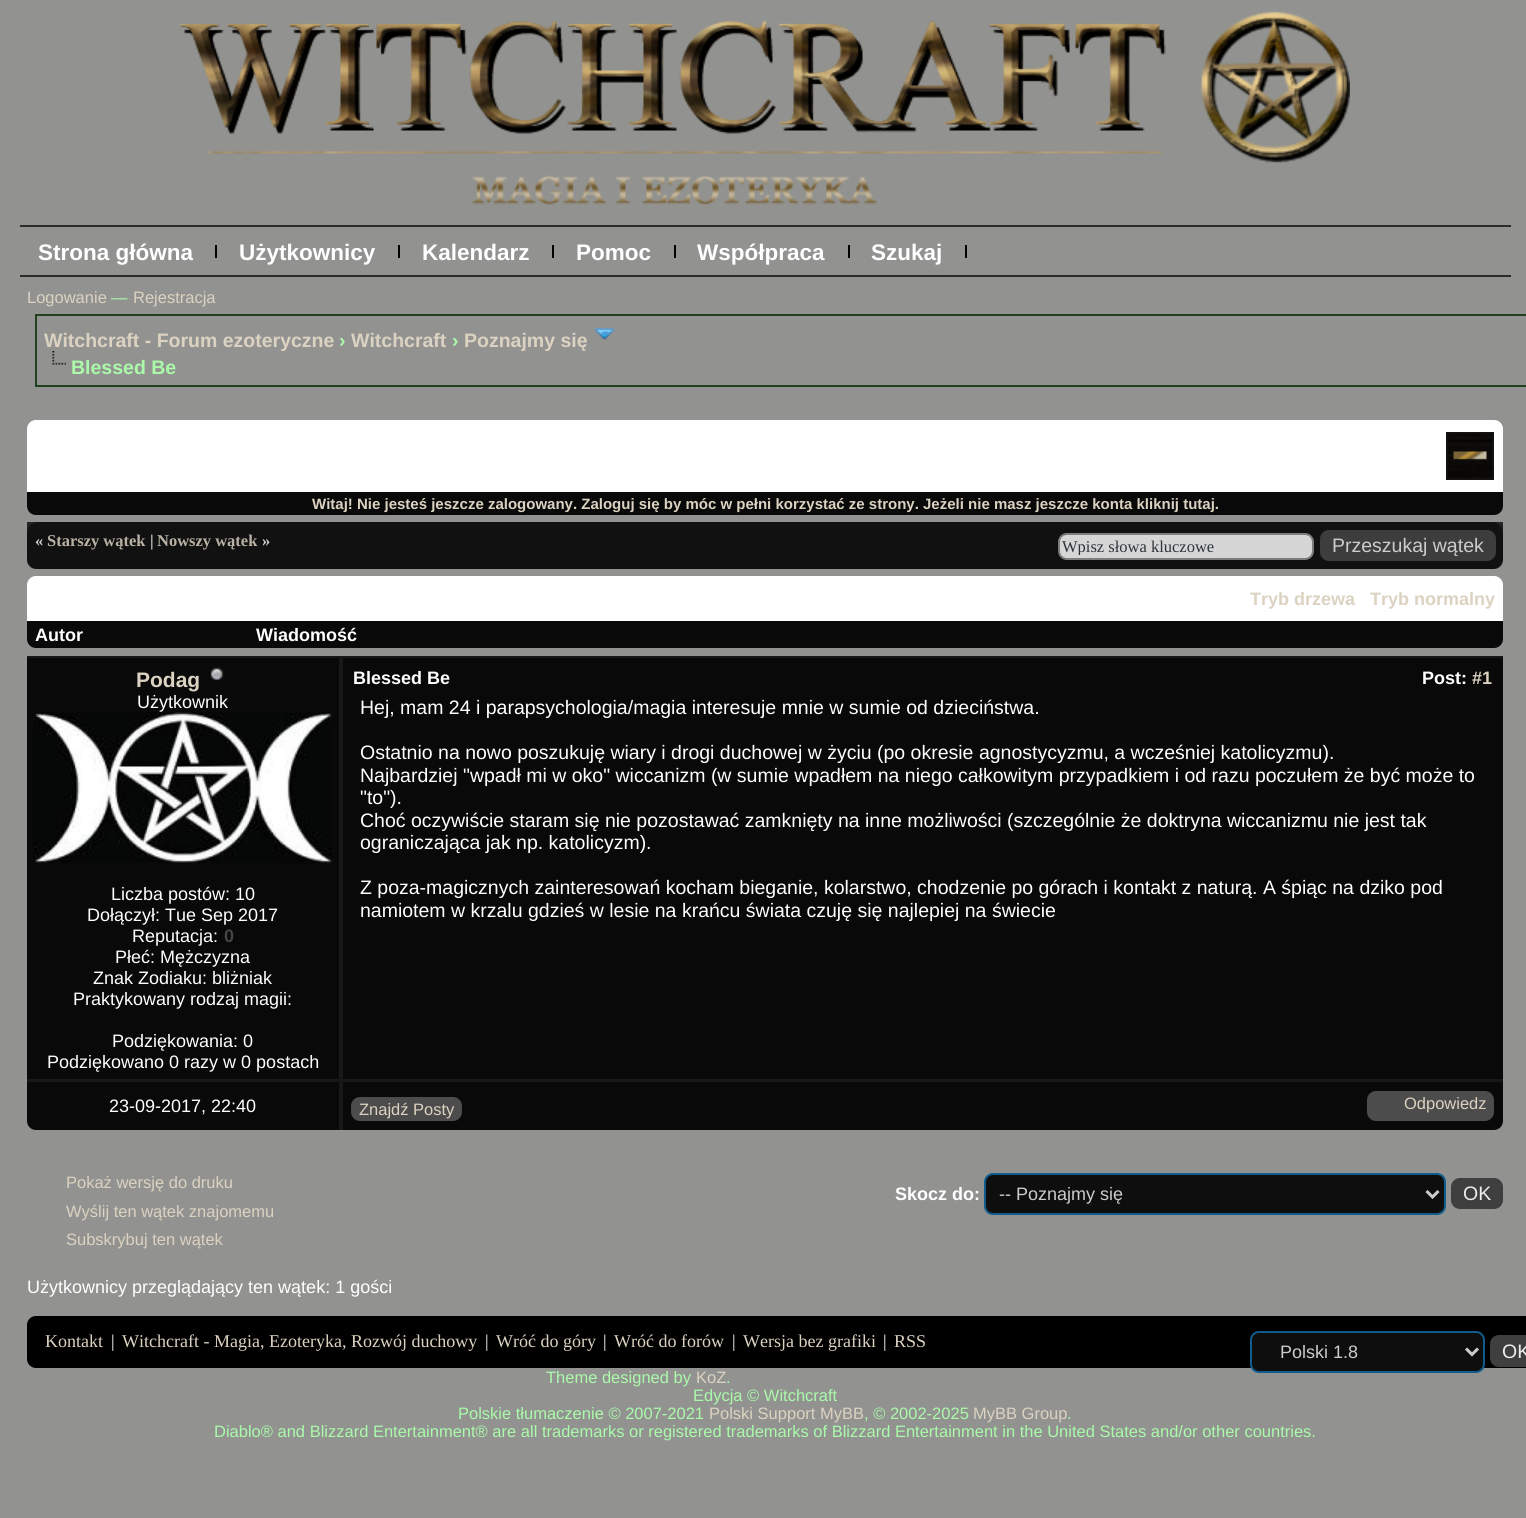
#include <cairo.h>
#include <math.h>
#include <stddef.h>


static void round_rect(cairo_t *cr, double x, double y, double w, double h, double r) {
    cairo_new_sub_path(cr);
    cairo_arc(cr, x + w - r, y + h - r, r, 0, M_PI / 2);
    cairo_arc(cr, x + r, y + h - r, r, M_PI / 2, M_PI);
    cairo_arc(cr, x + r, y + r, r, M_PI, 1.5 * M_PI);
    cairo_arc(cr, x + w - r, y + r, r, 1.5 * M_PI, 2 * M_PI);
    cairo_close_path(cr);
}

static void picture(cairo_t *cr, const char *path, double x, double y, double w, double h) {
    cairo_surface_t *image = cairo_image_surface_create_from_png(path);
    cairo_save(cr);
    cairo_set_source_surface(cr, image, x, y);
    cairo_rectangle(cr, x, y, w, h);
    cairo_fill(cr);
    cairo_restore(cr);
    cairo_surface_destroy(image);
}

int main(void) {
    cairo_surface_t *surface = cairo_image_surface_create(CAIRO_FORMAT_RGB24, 1526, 1518);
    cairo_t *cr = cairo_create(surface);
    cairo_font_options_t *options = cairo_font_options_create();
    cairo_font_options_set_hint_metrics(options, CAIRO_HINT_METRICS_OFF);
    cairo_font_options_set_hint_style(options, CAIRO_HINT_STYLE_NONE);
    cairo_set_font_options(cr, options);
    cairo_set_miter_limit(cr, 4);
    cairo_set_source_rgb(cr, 0.573, 0.576, 0.565);
    cairo_paint(cr);
    picture(cr, "img1.png", 180, 11, 1170, 194);
    cairo_set_source_rgb(cr, 0.169, 0.169, 0.169);
    cairo_rectangle(cr, 20, 225, 1491, 2);
    cairo_fill(cr);
    cairo_rectangle(cr, 20, 275, 1491, 2);
    cairo_fill(cr);
    cairo_set_source_rgb(cr, 0.012, 0.012, 0.012);
    cairo_rectangle(cr, 215, 245, 2, 13);
    cairo_fill(cr);
    cairo_select_font_face(cr, "Liberation Sans", CAIRO_FONT_SLANT_NORMAL, CAIRO_FONT_WEIGHT_BOLD);
    cairo_set_font_size(cr, 22.5);
    cairo_set_source_rgb(cr, 1, 1, 1);
    cairo_move_to(cr, 38, 260);
    cairo_show_text(cr, "Strona główna");
    cairo_set_source_rgb(cr, 0.012, 0.012, 0.012);
    cairo_rectangle(cr, 398, 245, 2, 13);
    cairo_fill(cr);
    cairo_set_source_rgb(cr, 1, 1, 1);
    cairo_move_to(cr, 239, 260);
    cairo_show_text(cr, "Użytkownicy");
    cairo_set_source_rgb(cr, 0.012, 0.012, 0.012);
    cairo_rectangle(cr, 552, 245, 2, 13);
    cairo_fill(cr);
    cairo_set_source_rgb(cr, 1, 1, 1);
    cairo_move_to(cr, 422, 260);
    cairo_show_text(cr, "Kalendarz");
    cairo_set_source_rgb(cr, 0.012, 0.012, 0.012);
    cairo_rectangle(cr, 674, 245, 2, 13);
    cairo_fill(cr);
    cairo_set_source_rgb(cr, 1, 1, 1);
    cairo_move_to(cr, 576, 260);
    cairo_show_text(cr, "Pomoc");
    cairo_set_source_rgb(cr, 0.012, 0.012, 0.012);
    cairo_rectangle(cr, 848, 245, 2, 13);
    cairo_fill(cr);
    cairo_set_source_rgb(cr, 1, 1, 1);
    cairo_move_to(cr, 697, 260);
    cairo_show_text(cr, "Współpraca");
    cairo_set_source_rgb(cr, 0.012, 0.012, 0.012);
    cairo_rectangle(cr, 965, 245, 2, 13);
    cairo_fill(cr);
    cairo_set_source_rgb(cr, 1, 1, 1);
    cairo_move_to(cr, 871, 260);
    cairo_show_text(cr, "Szukaj");
    cairo_select_font_face(cr, "Liberation Sans", CAIRO_FONT_SLANT_NORMAL, CAIRO_FONT_WEIGHT_NORMAL);
    cairo_set_font_size(cr, 16.5);
    cairo_set_source_rgb(cr, 0.863, 0.824, 0.757);
    cairo_move_to(cr, 27, 303);
    cairo_show_text(cr, "Logowanie");
    cairo_set_source_rgb(cr, 0.667, 0.98, 0.667);
    cairo_move_to(cr, 111, 303);
    cairo_show_text(cr, "—");
    cairo_set_source_rgb(cr, 0.863, 0.824, 0.757);
    cairo_move_to(cr, 133, 303);
    cairo_show_text(cr, "Rejestracja");
    cairo_rectangle(cr, 36, 315, 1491, 71);
    cairo_set_source_rgb(cr, 0.125, 0.251, 0.125);
    cairo_stroke(cr);
    cairo_select_font_face(cr, "Liberation Sans", CAIRO_FONT_SLANT_NORMAL, CAIRO_FONT_WEIGHT_BOLD);
    cairo_set_font_size(cr, 19.5);
    cairo_set_source_rgb(cr, 0.863, 0.824, 0.757);
    cairo_move_to(cr, 44, 347);
    cairo_show_text(cr, "Witchcraft - Forum ezoteryczne");
    cairo_set_source_rgb(cr, 0.667, 0.98, 0.667);
    cairo_move_to(cr, 339, 347);
    cairo_show_text(cr, "›");
    cairo_set_source_rgb(cr, 0.863, 0.824, 0.757);
    cairo_move_to(cr, 351, 347);
    cairo_show_text(cr, "Witchcraft");
    cairo_set_source_rgb(cr, 0.667, 0.98, 0.667);
    cairo_move_to(cr, 452, 347);
    cairo_show_text(cr, "›");
    cairo_set_source_rgb(cr, 0.863, 0.824, 0.757);
    cairo_move_to(cr, 464, 347);
    cairo_show_text(cr, "Poznajmy się");
    picture(cr, "img2.png", 594, 328, 21, 12);
    picture(cr, "img3.png", 52, 351, 14, 14);
    cairo_set_source_rgb(cr, 0.667, 0.98, 0.667);
    cairo_move_to(cr, 71, 374);
    cairo_show_text(cr, "Blessed Be");
    cairo_set_source_rgb(cr, 1, 1, 1);
    cairo_new_path(cr);
    cairo_move_to(cr, 36, 420);
    cairo_line_to(cr, 1494, 420);
    cairo_curve_to(cr, 1499, 420, 1503, 424, 1503, 429);
    cairo_line_to(cr, 1503, 492);
    cairo_line_to(cr, 27, 492);
    cairo_line_to(cr, 27, 429);
    cairo_curve_to(cr, 27, 424, 31, 420, 36, 420);
    cairo_close_path(cr);
    cairo_fill(cr);
    picture(cr, "img4.png", 1446, 432, 48, 48);
    cairo_set_source_rgb(cr, 0.039, 0.039, 0.039);
    cairo_new_path(cr);
    cairo_move_to(cr, 27, 492);
    cairo_line_to(cr, 1503, 492);
    cairo_line_to(cr, 1503, 506);
    cairo_curve_to(cr, 1503, 511, 1499, 515, 1494, 515);
    cairo_line_to(cr, 36, 515);
    cairo_curve_to(cr, 31, 515, 27, 511, 27, 506);
    cairo_close_path(cr);
    cairo_fill(cr);
    cairo_set_font_size(cr, 15);
    cairo_set_source_rgb(cr, 0.863, 0.824, 0.757);
    cairo_move_to(cr, 312, 509);
    cairo_show_text(cr, "Witaj! Nie jesteś jeszcze zalogowany. Zaloguj się by móc w pełni korzystać ze strony. Jeżeli nie masz jeszcze konta kliknij tutaj.");
    cairo_set_source_rgb(cr, 0.2, 0.2, 0.2);
    round_rect(cr, 27, 522, 1476, 47, 11);
    cairo_fill(cr);
    cairo_set_source_rgba(cr, 0.039, 0.039, 0.039, 0.8);
    cairo_new_path(cr);
    cairo_move_to(cr, 27, 522);
    cairo_line_to(cr, 1503, 522);
    cairo_line_to(cr, 1503, 560);
    cairo_curve_to(cr, 1503, 565, 1499, 569, 1494, 569);
    cairo_line_to(cr, 36, 569);
    cairo_curve_to(cr, 31, 569, 27, 565, 27, 560);
    cairo_close_path(cr);
    cairo_fill(cr);
    cairo_select_font_face(cr, "Liberation Serif", CAIRO_FONT_SLANT_NORMAL, CAIRO_FONT_WEIGHT_BOLD);
    cairo_set_font_size(cr, 16.5);
    cairo_set_source_rgb(cr, 0.824, 0.824, 0.824);
    cairo_move_to(cr, 35, 546);
    cairo_show_text(cr, "«");
    cairo_set_source_rgb(cr, 0.729, 0.698, 0.647);
    cairo_move_to(cr, 47, 546);
    cairo_show_text(cr, "Starszy wątek");
    cairo_set_source_rgb(cr, 0.824, 0.824, 0.824);
    cairo_move_to(cr, 150, 546);
    cairo_show_text(cr, "|");
    cairo_set_source_rgb(cr, 0.729, 0.698, 0.647);
    cairo_move_to(cr, 157, 546);
    cairo_show_text(cr, "Nowszy wątek");
    cairo_set_source_rgb(cr, 0.824, 0.824, 0.824);
    cairo_move_to(cr, 262, 546);
    cairo_show_text(cr, "»");
    cairo_set_source_rgb(cr, 0.839, 0.839, 0.839);
    round_rect(cr, 1059, 534, 254, 25, 8);
    cairo_fill_preserve(cr);
    cairo_set_source_rgb(cr, 0.49, 0.49, 0.49);
    cairo_stroke(cr);
    cairo_save(cr);
    cairo_rectangle(cr, 1062, 537, 248, 18);
    cairo_clip(cr);
    cairo_select_font_face(cr, "Liberation Serif", CAIRO_FONT_SLANT_NORMAL, CAIRO_FONT_WEIGHT_NORMAL);
    cairo_set_source_rgb(cr, 0.176, 0.208, 0.22);
    cairo_move_to(cr, 1062, 552);
    cairo_show_text(cr, "Wpisz słowa kluczowe");
    cairo_restore(cr);
    cairo_set_source_rgb(cr, 0.239, 0.239, 0.239);
    round_rect(cr, 1320, 530, 176, 31, 9);
    cairo_fill(cr);
    cairo_select_font_face(cr, "Liberation Sans", CAIRO_FONT_SLANT_NORMAL, CAIRO_FONT_WEIGHT_NORMAL);
    cairo_set_font_size(cr, 19.5);
    cairo_set_source_rgb(cr, 0.8, 0.8, 0.8);
    cairo_move_to(cr, 1332, 552);
    cairo_show_text(cr, "Przeszukaj wątek");
    cairo_set_source_rgb(cr, 1, 1, 1);
    cairo_new_path(cr);
    cairo_move_to(cr, 36, 576);
    cairo_line_to(cr, 1494, 576);
    cairo_curve_to(cr, 1499, 576, 1503, 580, 1503, 585);
    cairo_line_to(cr, 1503, 621);
    cairo_line_to(cr, 27, 621);
    cairo_line_to(cr, 27, 585);
    cairo_curve_to(cr, 27, 580, 31, 576, 36, 576);
    cairo_close_path(cr);
    cairo_fill(cr);
    cairo_select_font_face(cr, "Liberation Sans", CAIRO_FONT_SLANT_NORMAL, CAIRO_FONT_WEIGHT_BOLD);
    cairo_set_font_size(cr, 18);
    cairo_set_source_rgb(cr, 0.863, 0.824, 0.757);
    cairo_move_to(cr, 1250, 605);
    cairo_show_text(cr, "Tryb drzewa");
    cairo_move_to(cr, 1370, 605);
    cairo_show_text(cr, "Tryb normalny");
    cairo_set_source_rgb(cr, 0.039, 0.039, 0.039);
    cairo_new_path(cr);
    cairo_move_to(cr, 27, 621);
    cairo_line_to(cr, 249, 621);
    cairo_line_to(cr, 249, 648);
    cairo_line_to(cr, 36, 648);
    cairo_curve_to(cr, 31, 648, 27, 644, 27, 639);
    cairo_close_path(cr);
    cairo_fill(cr);
    cairo_set_source_rgb(cr, 1, 1, 1);
    cairo_move_to(cr, 35, 641);
    cairo_show_text(cr, "Autor");
    cairo_set_source_rgb(cr, 0.039, 0.039, 0.039);
    cairo_new_path(cr);
    cairo_move_to(cr, 249, 621);
    cairo_line_to(cr, 1503, 621);
    cairo_line_to(cr, 1503, 639);
    cairo_curve_to(cr, 1503, 644, 1499, 648, 1494, 648);
    cairo_line_to(cr, 249, 648);
    cairo_close_path(cr);
    cairo_fill(cr);
    cairo_set_source_rgb(cr, 1, 1, 1);
    cairo_move_to(cr, 256, 641);
    cairo_show_text(cr, "Wiadomość");
    cairo_set_source_rgb(cr, 0.039, 0.039, 0.039);
    cairo_rectangle(cr, 27, 658, 312, 421);
    cairo_fill(cr);
    cairo_set_source_rgb(cr, 0.094, 0.094, 0.094);
    cairo_rectangle(cr, 27, 656, 1476, 2);
    cairo_fill(cr);
    cairo_rectangle(cr, 339, 656, 2, 424);
    cairo_fill(cr);
    cairo_rectangle(cr, 27, 1079, 1476, 1);
    cairo_fill(cr);
    cairo_set_font_size(cr, 21);
    cairo_set_source_rgb(cr, 0.863, 0.824, 0.757);
    cairo_move_to(cr, 136, 687);
    cairo_show_text(cr, "Podag");
    picture(cr, "img5.png", 210, 667, 14, 13);
    cairo_select_font_face(cr, "Liberation Sans", CAIRO_FONT_SLANT_NORMAL, CAIRO_FONT_WEIGHT_NORMAL);
    cairo_set_font_size(cr, 18);
    cairo_set_source_rgb(cr, 1, 1, 1);
    cairo_move_to(cr, 137, 708);
    cairo_show_text(cr, "Użytkownik");
    picture(cr, "img6.png", 33, 712, 300, 151);
    cairo_move_to(cr, 111, 900);
    cairo_show_text(cr, "Liczba postów: 10");
    cairo_move_to(cr, 87, 921);
    cairo_show_text(cr, "Dołączył: Tue Sep 2017");
    cairo_move_to(cr, 132, 942);
    cairo_show_text(cr, "Reputacja:");
    cairo_select_font_face(cr, "Liberation Sans", CAIRO_FONT_SLANT_NORMAL, CAIRO_FONT_WEIGHT_BOLD);
    cairo_set_source_rgb(cr, 0.267, 0.267, 0.267);
    cairo_move_to(cr, 224, 942);
    cairo_show_text(cr, "0");
    cairo_select_font_face(cr, "Liberation Sans", CAIRO_FONT_SLANT_NORMAL, CAIRO_FONT_WEIGHT_NORMAL);
    cairo_set_source_rgb(cr, 1, 1, 1);
    cairo_move_to(cr, 115, 963);
    cairo_show_text(cr, "Płeć: Mężczyzna");
    cairo_move_to(cr, 93, 984);
    cairo_show_text(cr, "Znak Zodiaku: bliżniak");
    cairo_move_to(cr, 73, 1005);
    cairo_show_text(cr, "Praktykowany rodzaj magii:");
    cairo_move_to(cr, 112, 1047);
    cairo_show_text(cr, "Podziękowania: 0");
    cairo_move_to(cr, 47, 1068);
    cairo_show_text(cr, "Podziękowano 0 razy w 0 postach");
    cairo_set_source_rgb(cr, 0.039, 0.039, 0.039);
    cairo_rectangle(cr, 343, 658, 1160, 421);
    cairo_fill(cr);
    cairo_set_source_rgb(cr, 0.094, 0.094, 0.094);
    cairo_rectangle(cr, 341, 656, 2, 424);
    cairo_fill(cr);
    cairo_select_font_face(cr, "Liberation Sans", CAIRO_FONT_SLANT_NORMAL, CAIRO_FONT_WEIGHT_BOLD);
    cairo_set_source_rgb(cr, 1, 1, 1);
    cairo_move_to(cr, 353, 684);
    cairo_show_text(cr, "Blessed Be");
    cairo_move_to(cr, 1422, 684);
    cairo_show_text(cr, "Post:");
    cairo_set_source_rgb(cr, 0.863, 0.824, 0.757);
    cairo_move_to(cr, 1472, 684);
    cairo_show_text(cr, "#1");
    cairo_select_font_face(cr, "Liberation Sans", CAIRO_FONT_SLANT_NORMAL, CAIRO_FONT_WEIGHT_NORMAL);
    cairo_set_font_size(cr, 19.5);
    cairo_set_source_rgb(cr, 1, 1, 1);
    cairo_move_to(cr, 360, 714);
    cairo_show_text(cr, "Hej, mam 24 i parapsychologia/magia interesuje mnie w sumie od dzieciństwa.");
    cairo_move_to(cr, 360, 759);
    cairo_show_text(cr, "Ostatnio na nowo poszukuję wiary i drogi duchowej w życiu (po okresie agnostycyzmu, a wcześniej katolicyzmu).");
    cairo_move_to(cr, 360, 782);
    cairo_show_text(cr, "Najbardziej \"wpadł mi w oko\" wiccanizm (w sumie wpadłem na niego całkowitym przypadkiem i od razu poczułem że być może to");
    cairo_move_to(cr, 360, 804);
    cairo_show_text(cr, "\"to\").");
    cairo_move_to(cr, 360, 827);
    cairo_show_text(cr, "Choć oczywiście staram się nie pozostawać zamknięty na inne możliwości (szczególnie że doktryna wiccanizmu nie jest tak");
    cairo_move_to(cr, 360, 849);
    cairo_show_text(cr, "ograniczająca jak np. katolicyzm).");
    cairo_move_to(cr, 360, 894);
    cairo_show_text(cr, "Z poza-magicznych zainteresowań kocham bieganie, kolarstwo, chodzenie po górach i kontakt z naturą. A śpiąc na dziko pod");
    cairo_move_to(cr, 360, 917);
    cairo_show_text(cr, "namiotem w krzalu gdzieś w lesie na krańcu świata czuję się najlepiej na świecie");
    cairo_set_source_rgb(cr, 0.039, 0.039, 0.039);
    cairo_new_path(cr);
    cairo_move_to(cr, 27, 1080);
    cairo_line_to(cr, 341, 1080);
    cairo_line_to(cr, 341, 1130);
    cairo_line_to(cr, 36, 1130);
    cairo_curve_to(cr, 31, 1130, 27, 1126, 27, 1121);
    cairo_close_path(cr);
    cairo_fill(cr);
    cairo_set_source_rgb(cr, 0.094, 0.094, 0.094);
    cairo_rectangle(cr, 27, 1080, 314, 2);
    cairo_fill(cr);
    cairo_rectangle(cr, 339, 1080, 2, 50);
    cairo_fill(cr);
    cairo_set_font_size(cr, 18);
    cairo_set_source_rgb(cr, 1, 1, 1);
    cairo_move_to(cr, 109, 1112);
    cairo_show_text(cr, "23-09-2017, 22:40");
    cairo_set_source_rgb(cr, 0.039, 0.039, 0.039);
    cairo_new_path(cr);
    cairo_move_to(cr, 341, 1080);
    cairo_line_to(cr, 1503, 1080);
    cairo_line_to(cr, 1503, 1121);
    cairo_curve_to(cr, 1503, 1126, 1499, 1130, 1494, 1130);
    cairo_line_to(cr, 341, 1130);
    cairo_close_path(cr);
    cairo_fill(cr);
    cairo_set_source_rgb(cr, 0.094, 0.094, 0.094);
    cairo_rectangle(cr, 341, 1080, 1162, 2);
    cairo_fill(cr);
    cairo_rectangle(cr, 341, 1080, 2, 50);
    cairo_fill(cr);
    cairo_set_source_rgb(cr, 0.298, 0.298, 0.298);
    round_rect(cr, 351, 1097, 111, 24, 9);
    cairo_fill(cr);
    cairo_set_font_size(cr, 16.5);
    cairo_set_source_rgb(cr, 0.863, 0.824, 0.757);
    cairo_move_to(cr, 359, 1115);
    cairo_show_text(cr, "Znajdź Posty");
    cairo_set_source_rgb(cr, 0.298, 0.298, 0.298);
    round_rect(cr, 1367, 1091, 127, 30, 9);
    cairo_fill(cr);
    cairo_set_source_rgb(cr, 0.863, 0.824, 0.757);
    cairo_move_to(cr, 1404, 1109);
    cairo_show_text(cr, "Odpowiedz");
    cairo_move_to(cr, 66, 1188);
    cairo_show_text(cr, "Pokaż wersję do druku");
    cairo_move_to(cr, 66, 1217);
    cairo_show_text(cr, "Wyślij ten wątek znajomemu");
    cairo_move_to(cr, 66, 1245);
    cairo_show_text(cr, "Subskrybuj ten wątek");
    cairo_select_font_face(cr, "Liberation Sans", CAIRO_FONT_SLANT_NORMAL, CAIRO_FONT_WEIGHT_BOLD);
    cairo_set_font_size(cr, 18);
    cairo_set_source_rgb(cr, 1, 1, 1);
    cairo_move_to(cr, 895, 1200);
    cairo_show_text(cr, "Skocz do:");
    cairo_set_source_rgb(cr, 0.055, 0.055, 0.055);
    round_rect(cr, 985, 1174, 460, 40, 8);
    cairo_fill_preserve(cr);
    cairo_set_source_rgb(cr, 0.059, 0.361, 0.557);
    cairo_stroke(cr);
    cairo_new_path(cr);
    cairo_move_to(cr, 1426.5, 1191);
    cairo_line_to(cr, 1432.5, 1197);
    cairo_line_to(cr, 1438.5, 1191);
    cairo_set_source_rgb(cr, 0.8, 0.8, 0.8);
    cairo_set_line_width(cr, 3);
    cairo_stroke(cr);
    cairo_select_font_face(cr, "Liberation Sans", CAIRO_FONT_SLANT_NORMAL, CAIRO_FONT_WEIGHT_NORMAL);
    cairo_move_to(cr, 999, 1200);
    cairo_show_text(cr, "-- Poznajmy się");
    cairo_set_source_rgb(cr, 0.247, 0.247, 0.247);
    round_rect(cr, 1451, 1178, 52, 31, 9);
    cairo_fill(cr);
    cairo_set_font_size(cr, 19.5);
    cairo_set_source_rgb(cr, 0.929, 0.929, 0.929);
    cairo_move_to(cr, 1463, 1200);
    cairo_show_text(cr, "OK");
    cairo_set_font_size(cr, 18);
    cairo_set_source_rgb(cr, 1, 1, 1);
    cairo_move_to(cr, 27, 1293);
    cairo_show_text(cr, "Użytkownicy przeglądający ten wątek: 1 gości");
    cairo_set_source_rgb(cr, 0, 0, 0);
    round_rect(cr, 27, 1316, 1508, 52, 9);
    cairo_fill(cr);
    cairo_select_font_face(cr, "Liberation Serif", CAIRO_FONT_SLANT_NORMAL, CAIRO_FONT_WEIGHT_NORMAL);
    cairo_set_source_rgb(cr, 0.863, 0.824, 0.757);
    cairo_move_to(cr, 45, 1347);
    cairo_show_text(cr, "Kontakt");
    cairo_set_source_rgb(cr, 1, 1, 1);
    cairo_move_to(cr, 111, 1347);
    cairo_show_text(cr, "|");
    cairo_set_source_rgb(cr, 0.863, 0.824, 0.757);
    cairo_move_to(cr, 122, 1347);
    cairo_show_text(cr, "Witchcraft - Magia, Ezoteryka, Rozwój duchowy");
    cairo_set_source_rgb(cr, 1, 1, 1);
    cairo_move_to(cr, 485, 1347);
    cairo_show_text(cr, "|");
    cairo_set_source_rgb(cr, 0.863, 0.824, 0.757);
    cairo_move_to(cr, 496, 1347);
    cairo_show_text(cr, "Wróć do góry");
    cairo_set_source_rgb(cr, 1, 1, 1);
    cairo_move_to(cr, 603, 1347);
    cairo_show_text(cr, "|");
    cairo_set_source_rgb(cr, 0.863, 0.824, 0.757);
    cairo_move_to(cr, 614, 1347);
    cairo_show_text(cr, "Wróć do forów");
    cairo_set_source_rgb(cr, 1, 1, 1);
    cairo_move_to(cr, 732, 1347);
    cairo_show_text(cr, "|");
    cairo_set_source_rgb(cr, 0.863, 0.824, 0.757);
    cairo_move_to(cr, 743, 1347);
    cairo_show_text(cr, "Wersja bez grafiki");
    cairo_set_source_rgb(cr, 1, 1, 1);
    cairo_move_to(cr, 883, 1347);
    cairo_show_text(cr, "|");
    cairo_set_source_rgb(cr, 0.863, 0.824, 0.757);
    cairo_move_to(cr, 894, 1347);
    cairo_show_text(cr, "RSS");
    cairo_set_source_rgb(cr, 0.055, 0.055, 0.055);
    round_rect(cr, 1251, 1332, 233, 40, 8);
    cairo_fill_preserve(cr);
    cairo_set_source_rgb(cr, 0.059, 0.361, 0.557);
    cairo_set_line_width(cr, 2);
    cairo_stroke(cr);
    cairo_new_path(cr);
    cairo_move_to(cr, 1466, 1348.5);
    cairo_line_to(cr, 1472, 1354.5);
    cairo_line_to(cr, 1478, 1348.5);
    cairo_set_source_rgb(cr, 0.8, 0.8, 0.8);
    cairo_set_line_width(cr, 3);
    cairo_stroke(cr);
    cairo_select_font_face(cr, "Liberation Sans", CAIRO_FONT_SLANT_NORMAL, CAIRO_FONT_WEIGHT_NORMAL);
    cairo_move_to(cr, 1280, 1358);
    cairo_show_text(cr, "Polski 1.8");
    cairo_set_source_rgb(cr, 0.247, 0.247, 0.247);
    round_rect(cr, 1490, 1335, 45, 32, 9);
    cairo_fill(cr);
    cairo_set_font_size(cr, 19.5);
    cairo_set_source_rgb(cr, 0.929, 0.929, 0.929);
    cairo_move_to(cr, 1502, 1358);
    cairo_show_text(cr, "OK");
    cairo_set_font_size(cr, 16.5);
    cairo_set_source_rgb(cr, 0.667, 0.98, 0.667);
    cairo_move_to(cr, 546, 1383);
    cairo_show_text(cr, "Theme designed by");
    cairo_set_source_rgb(cr, 0.863, 0.824, 0.757);
    cairo_move_to(cr, 696, 1383);
    cairo_show_text(cr, "KoZ");
    cairo_set_source_rgb(cr, 0.667, 0.98, 0.667);
    cairo_move_to(cr, 726, 1383);
    cairo_show_text(cr, ".");
    cairo_move_to(cr, 693, 1401);
    cairo_show_text(cr, "Edycja © Witchcraft");
    cairo_move_to(cr, 458, 1419);
    cairo_show_text(cr, "Polskie tłumaczenie © 2007-2021");
    cairo_set_source_rgb(cr, 0.863, 0.824, 0.757);
    cairo_move_to(cr, 709, 1419);
    cairo_show_text(cr, "Polski Support MyBB");
    cairo_set_source_rgb(cr, 0.667, 0.98, 0.667);
    cairo_move_to(cr, 864, 1419);
    cairo_show_text(cr, ", © 2002-2025");
    cairo_set_source_rgb(cr, 0.863, 0.824, 0.757);
    cairo_move_to(cr, 973, 1419);
    cairo_show_text(cr, "MyBB Group");
    cairo_set_source_rgb(cr, 0.667, 0.98, 0.667);
    cairo_move_to(cr, 1067, 1419);
    cairo_show_text(cr, ".");
    cairo_move_to(cr, 214, 1437);
    cairo_show_text(cr, "Diablo® and Blizzard Entertainment® are all trademarks or registered trademarks of Blizzard Entertainment in the United States and/or other countries.");
    cairo_surface_write_to_png(surface, "page.png");
    cairo_font_options_destroy(options);
    cairo_destroy(cr);
    cairo_surface_destroy(surface);
    return 0;
}
